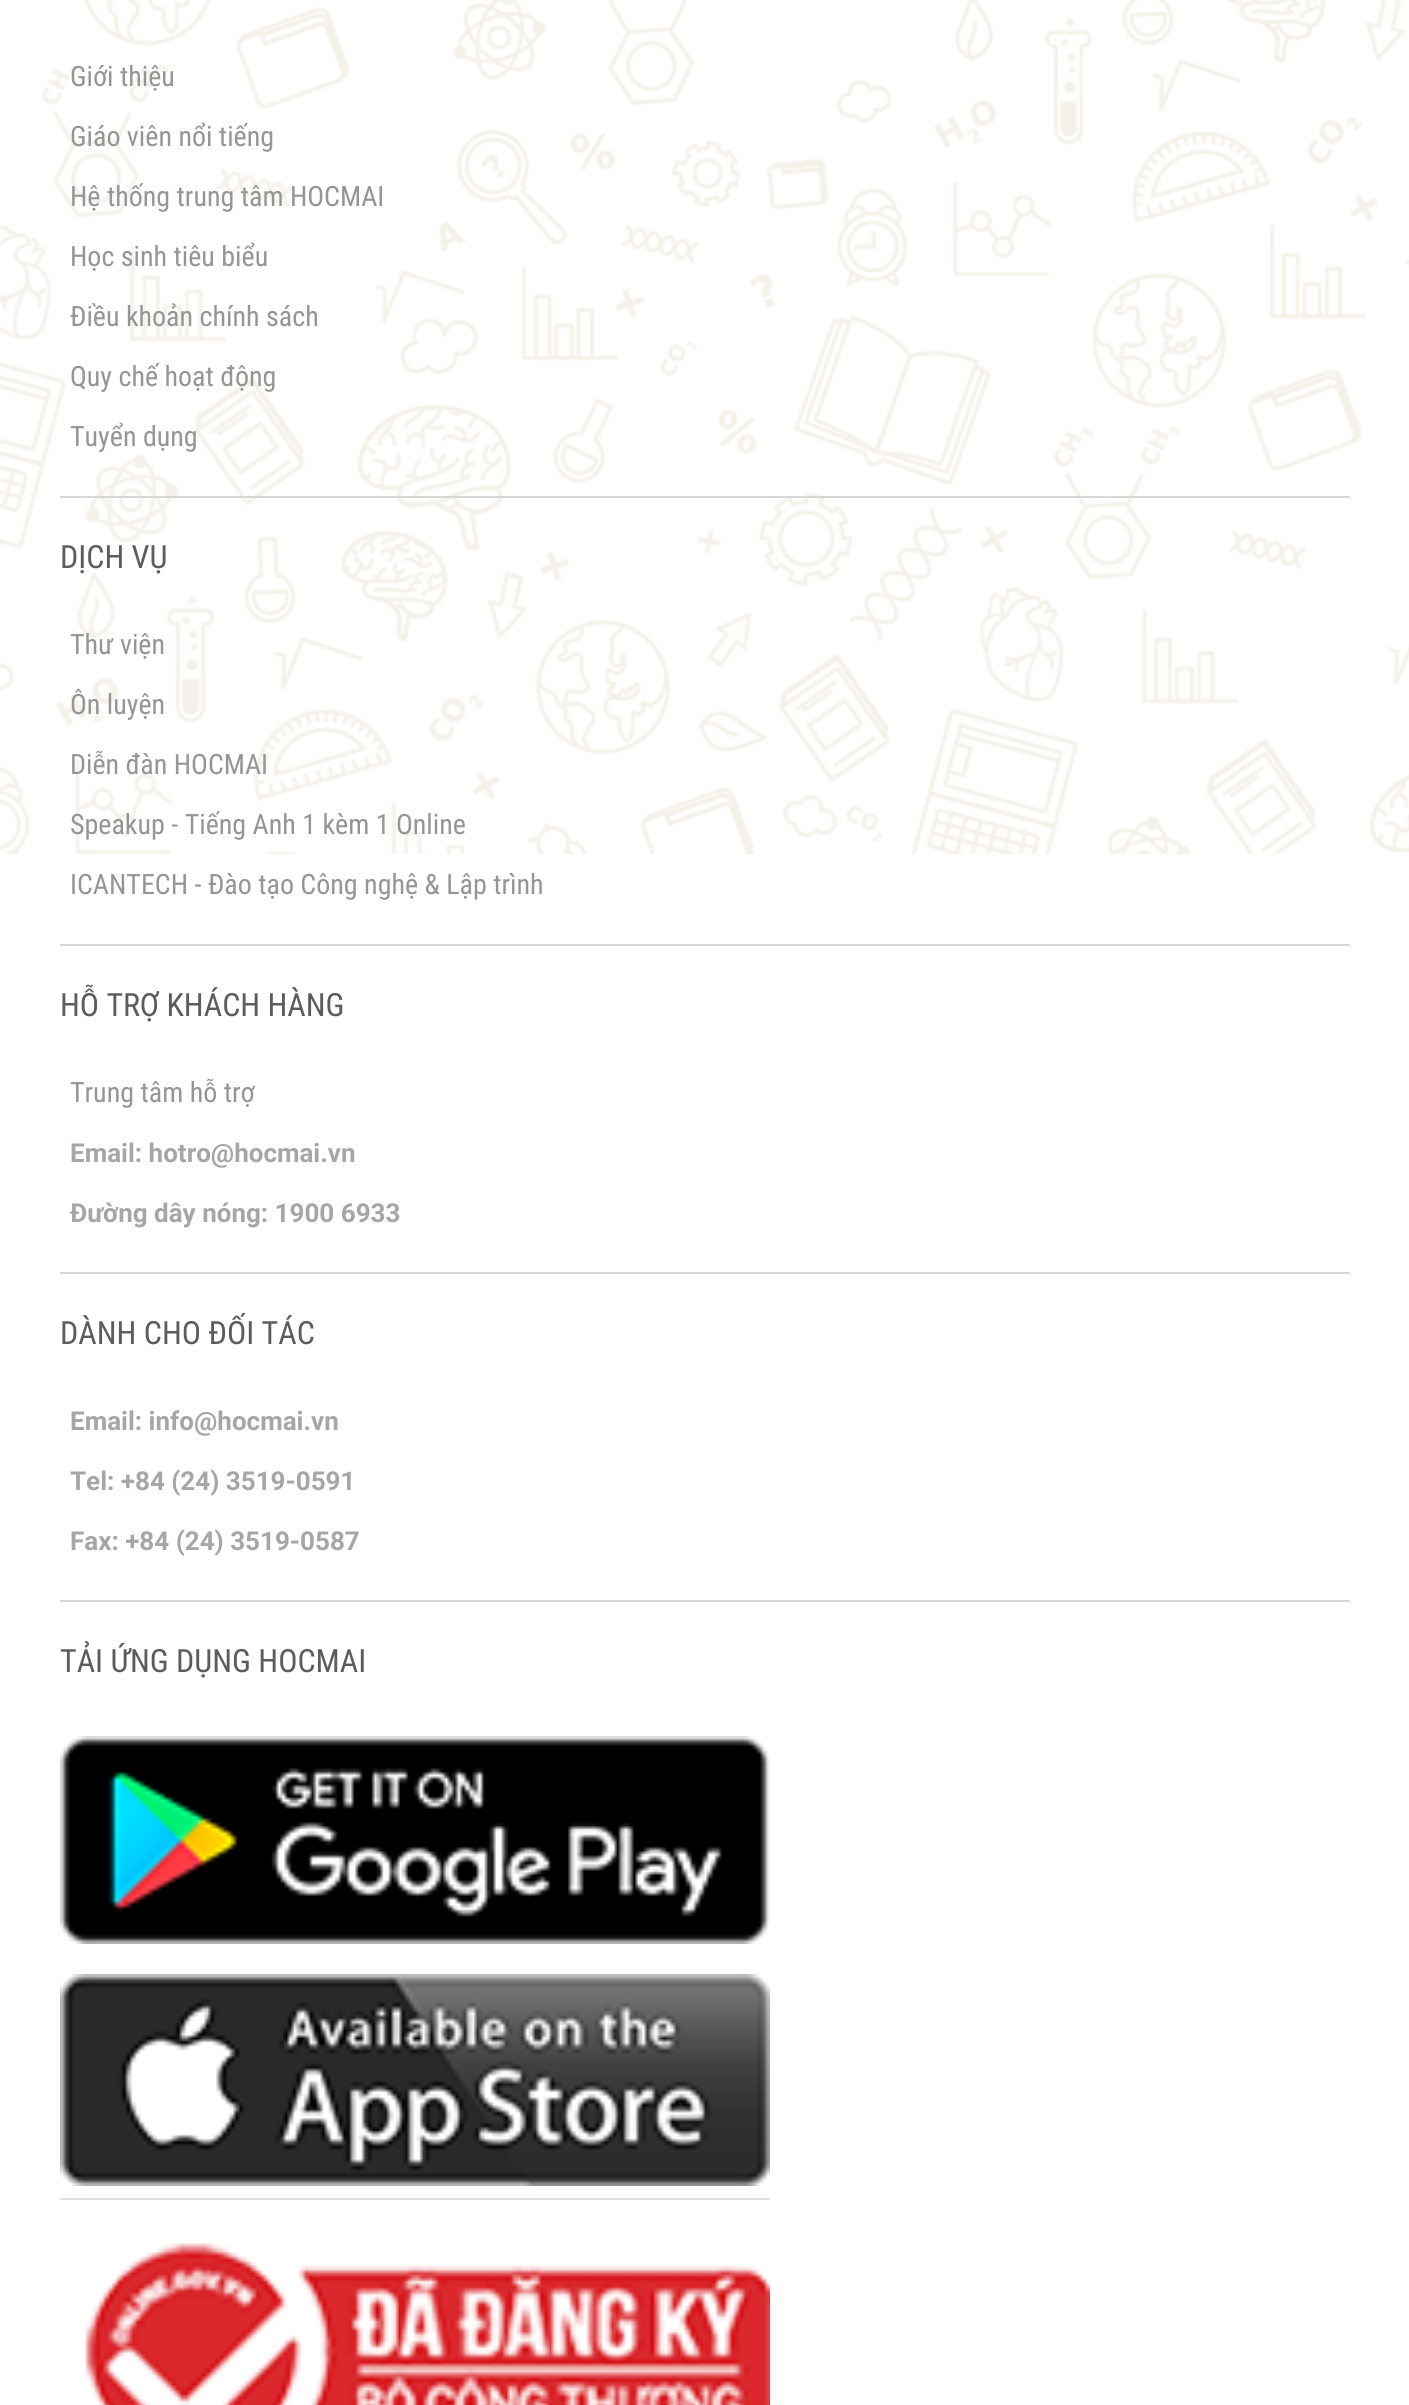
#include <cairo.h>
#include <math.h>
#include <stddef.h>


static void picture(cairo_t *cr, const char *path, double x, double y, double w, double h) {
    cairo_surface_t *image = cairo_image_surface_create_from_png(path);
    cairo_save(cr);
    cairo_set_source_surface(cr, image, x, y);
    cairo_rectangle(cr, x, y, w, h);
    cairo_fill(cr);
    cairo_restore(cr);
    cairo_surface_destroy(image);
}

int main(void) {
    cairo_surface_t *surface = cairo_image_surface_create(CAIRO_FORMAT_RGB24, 1409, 2405);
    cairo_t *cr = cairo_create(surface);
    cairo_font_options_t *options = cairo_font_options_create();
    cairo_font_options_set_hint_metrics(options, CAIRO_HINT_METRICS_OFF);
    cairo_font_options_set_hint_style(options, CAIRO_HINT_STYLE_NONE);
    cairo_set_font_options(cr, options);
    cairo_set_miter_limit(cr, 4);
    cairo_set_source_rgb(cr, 1, 1, 1);
    cairo_paint(cr);
    picture(cr, "img1.png", 0, 0, 1409, 854);
    cairo_set_source_rgb(cr, 0.847, 0.847, 0.847);
    cairo_rectangle(cr, 60, 496, 1290, 2);
    cairo_fill(cr);
    cairo_select_font_face(cr, "Roboto Condensed", CAIRO_FONT_SLANT_NORMAL, CAIRO_FONT_WEIGHT_NORMAL);
    cairo_set_font_size(cr, 28);
    cairo_set_source_rgb(cr, 0.584, 0.584, 0.584);
    cairo_move_to(cr, 70, 86);
    cairo_show_text(cr, "Giới thiệu");
    cairo_move_to(cr, 70, 146);
    cairo_show_text(cr, "Giáo viên nổi tiếng");
    cairo_move_to(cr, 70, 206);
    cairo_show_text(cr, "Hệ thống trung tâm HOCMAI");
    cairo_move_to(cr, 70, 266);
    cairo_show_text(cr, "Học sinh tiêu biểu");
    cairo_move_to(cr, 70, 326);
    cairo_show_text(cr, "Điều khoản chính sách");
    cairo_move_to(cr, 70, 386);
    cairo_show_text(cr, "Quy chế hoạt động");
    cairo_move_to(cr, 70, 446);
    cairo_show_text(cr, "Tuyển dụng");
    cairo_set_source_rgb(cr, 0.847, 0.847, 0.847);
    cairo_rectangle(cr, 60, 944, 1290, 2);
    cairo_fill(cr);
    cairo_set_font_size(cr, 32);
    cairo_set_source_rgb(cr, 0.361, 0.361, 0.361);
    cairo_move_to(cr, 60, 568);
    cairo_show_text(cr, "DỊCH VỤ");
    cairo_set_font_size(cr, 28);
    cairo_set_source_rgb(cr, 0.584, 0.584, 0.584);
    cairo_move_to(cr, 70, 654);
    cairo_show_text(cr, "Thư viện");
    cairo_move_to(cr, 70, 714);
    cairo_show_text(cr, "Ôn luyện");
    cairo_move_to(cr, 70, 774);
    cairo_show_text(cr, "Diễn đàn HOCMAI");
    cairo_move_to(cr, 70, 834);
    cairo_show_text(cr, "Speakup - Tiếng Anh 1 kèm 1 Online");
    cairo_move_to(cr, 70, 894);
    cairo_show_text(cr, "ICANTECH - Đào tạo Công nghệ & Lập trình");
    cairo_set_source_rgb(cr, 0.847, 0.847, 0.847);
    cairo_rectangle(cr, 60, 1272, 1290, 2);
    cairo_fill(cr);
    cairo_set_font_size(cr, 32);
    cairo_set_source_rgb(cr, 0.361, 0.361, 0.361);
    cairo_move_to(cr, 60, 1016);
    cairo_show_text(cr, "HỖ TRỢ KHÁCH HÀNG");
    cairo_set_font_size(cr, 28);
    cairo_set_source_rgb(cr, 0.584, 0.584, 0.584);
    cairo_move_to(cr, 70, 1102);
    cairo_show_text(cr, "Trung tâm hỗ trợ");
    cairo_select_font_face(cr, "Roboto", CAIRO_FONT_SLANT_NORMAL, CAIRO_FONT_WEIGHT_BOLD);
    cairo_set_font_size(cr, 26);
    cairo_set_source_rgb(cr, 0.651, 0.651, 0.651);
    cairo_move_to(cr, 70, 1162);
    cairo_show_text(cr, "Email: hotro@hocmai.vn");
    cairo_move_to(cr, 70, 1222);
    cairo_show_text(cr, "Đường dây nóng: 1900 6933");
    cairo_set_source_rgb(cr, 0.847, 0.847, 0.847);
    cairo_rectangle(cr, 60, 1600, 1290, 2);
    cairo_fill(cr);
    cairo_select_font_face(cr, "Roboto Condensed", CAIRO_FONT_SLANT_NORMAL, CAIRO_FONT_WEIGHT_NORMAL);
    cairo_set_font_size(cr, 32);
    cairo_set_source_rgb(cr, 0.361, 0.361, 0.361);
    cairo_move_to(cr, 60, 1344);
    cairo_show_text(cr, "DÀNH CHO ĐỐI TÁC");
    cairo_select_font_face(cr, "Roboto", CAIRO_FONT_SLANT_NORMAL, CAIRO_FONT_WEIGHT_BOLD);
    cairo_set_font_size(cr, 26);
    cairo_set_source_rgb(cr, 0.651, 0.651, 0.651);
    cairo_move_to(cr, 70, 1430);
    cairo_show_text(cr, "Email: info@hocmai.vn");
    cairo_move_to(cr, 70, 1490);
    cairo_show_text(cr, "Tel: +84 (24) 3519-0591");
    cairo_move_to(cr, 70, 1550);
    cairo_show_text(cr, "Fax: +84 (24) 3519-0587");
    cairo_select_font_face(cr, "Roboto Condensed", CAIRO_FONT_SLANT_NORMAL, CAIRO_FONT_WEIGHT_NORMAL);
    cairo_set_font_size(cr, 32);
    cairo_set_source_rgb(cr, 0.361, 0.361, 0.361);
    cairo_move_to(cr, 60, 1672);
    cairo_show_text(cr, "TẢI ỨNG DỤNG HOCMAI");
    picture(cr, "img2.png", 60, 1736, 710, 208);
    picture(cr, "img3.png", 60, 1974, 710, 212);
    cairo_set_source_rgb(cr, 0.886, 0.875, 0.875);
    cairo_rectangle(cr, 60, 2198, 710, 2);
    cairo_fill(cr);
    picture(cr, "img4.png", 85, 2243, 685, 162);
    cairo_surface_write_to_png(surface, "page.png");
    cairo_font_options_destroy(options);
    cairo_destroy(cr);
    cairo_surface_destroy(surface);
    return 0;
}
